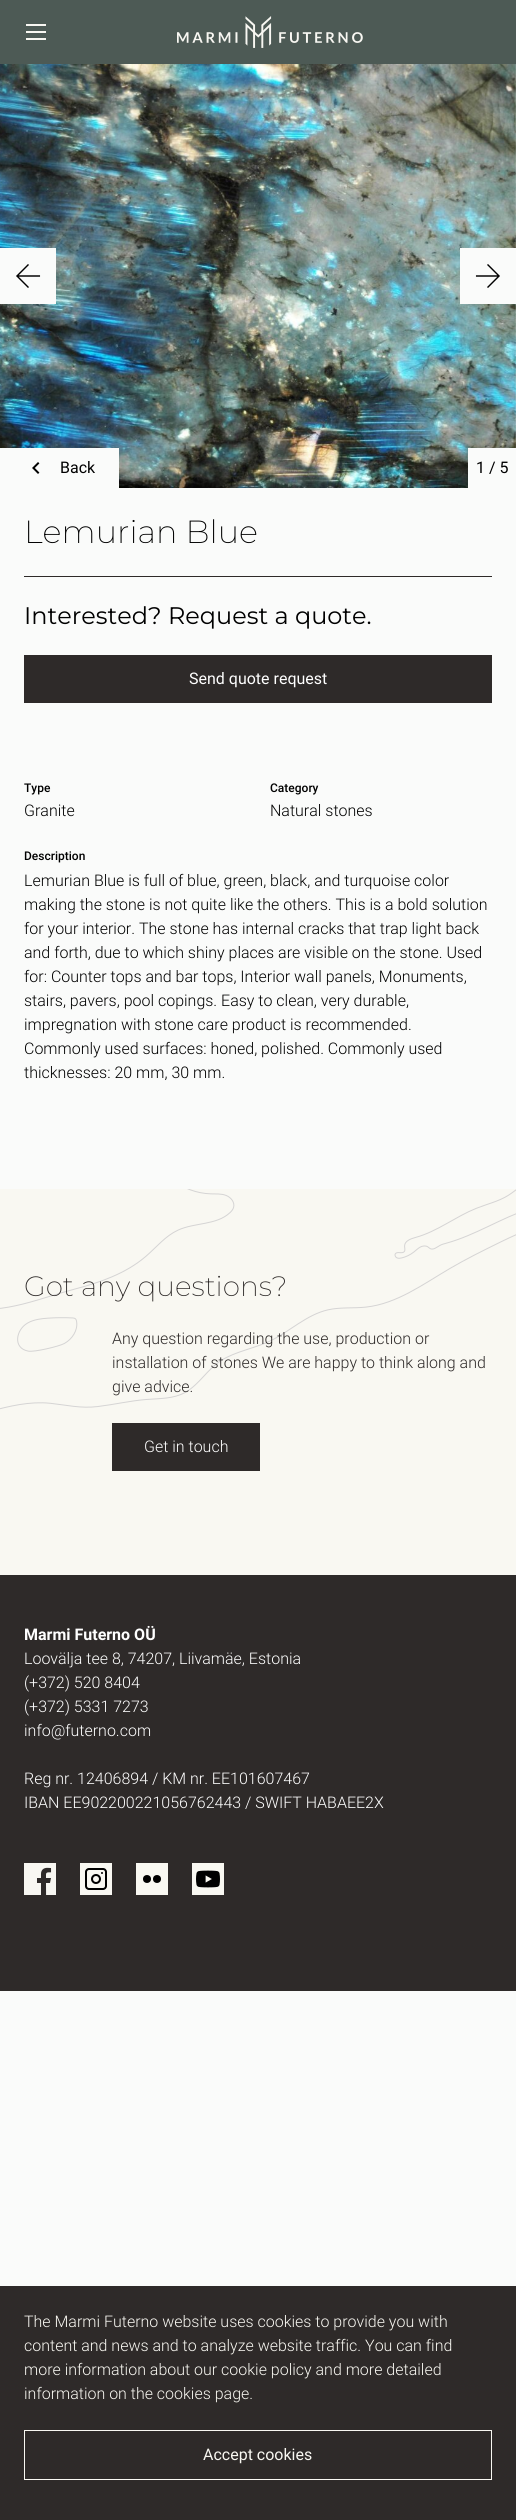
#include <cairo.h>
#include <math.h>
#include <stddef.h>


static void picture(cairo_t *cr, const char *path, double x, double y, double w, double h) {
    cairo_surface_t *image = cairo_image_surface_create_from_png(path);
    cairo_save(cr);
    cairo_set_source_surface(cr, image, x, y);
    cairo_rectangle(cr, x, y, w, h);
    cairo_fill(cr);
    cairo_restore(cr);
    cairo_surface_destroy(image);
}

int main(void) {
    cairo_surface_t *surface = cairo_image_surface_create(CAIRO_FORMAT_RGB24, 516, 2520);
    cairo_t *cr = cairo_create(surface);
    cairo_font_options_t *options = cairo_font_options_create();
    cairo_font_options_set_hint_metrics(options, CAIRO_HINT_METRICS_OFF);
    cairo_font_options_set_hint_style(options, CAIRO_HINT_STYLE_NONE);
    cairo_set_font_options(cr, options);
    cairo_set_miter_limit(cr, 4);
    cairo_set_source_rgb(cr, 0.98, 0.984, 0.98);
    cairo_paint(cr);
    cairo_set_source_rgb(cr, 0.302, 0.353, 0.333);
    cairo_rectangle(cr, 0, 0, 516, 64);
    cairo_fill(cr);
    picture(cr, "img1.png", 26, 24, 20, 16);
    picture(cr, "img2.png", 177, 16, 186, 32);
    picture(cr, "img3.png", 0, 64, 516, 424);
    cairo_set_source_rgb(cr, 0.98, 0.984, 0.98);
    cairo_rectangle(cr, 0, 248, 56, 56);
    cairo_fill(cr);
    picture(cr, "img4.png", 16, 264, 25, 24);
    cairo_rectangle(cr, 460, 248, 56, 56);
    cairo_fill(cr);
    picture(cr, "img5.png", 475, 264, 25, 24);
    cairo_rectangle(cr, 0, 448, 119, 40);
    cairo_fill(cr);
    picture(cr, "img6.png", 32, 462, 8, 12);
    cairo_select_font_face(cr, "Roboto", CAIRO_FONT_SLANT_NORMAL, CAIRO_FONT_WEIGHT_NORMAL);
    cairo_set_font_size(cr, 16);
    cairo_set_source_rgb(cr, 0, 0, 0);
    cairo_move_to(cr, 60, 473);
    cairo_show_text(cr, "Back");
    cairo_set_source_rgb(cr, 0.98, 0.984, 0.98);
    cairo_rectangle(cr, 468, 448, 48, 40);
    cairo_fill(cr);
    cairo_set_source_rgb(cr, 0, 0, 0);
    cairo_move_to(cr, 476, 473);
    cairo_show_text(cr, "1 / 5");
    cairo_select_font_face(cr, "Montserrat ExtraLight", CAIRO_FONT_SLANT_NORMAL, CAIRO_FONT_WEIGHT_NORMAL);
    cairo_set_font_size(cr, 32);
    cairo_move_to(cr, 24, 543);
    cairo_show_text(cr, "Lemurian Blue");
    cairo_set_source_rgb(cr, 0.18, 0.165, 0.161);
    cairo_rectangle(cr, 24, 576, 468, 1);
    cairo_fill(cr);
    cairo_select_font_face(cr, "Montserrat", CAIRO_FONT_SLANT_NORMAL, CAIRO_FONT_WEIGHT_NORMAL);
    cairo_set_font_size(cr, 24);
    cairo_set_source_rgb(cr, 0, 0, 0);
    cairo_move_to(cr, 24, 624);
    cairo_show_text(cr, "Interested? Request a quote.");
    cairo_set_source_rgb(cr, 0.18, 0.165, 0.161);
    cairo_rectangle(cr, 24, 655, 468, 48);
    cairo_fill(cr);
    cairo_select_font_face(cr, "Roboto", CAIRO_FONT_SLANT_NORMAL, CAIRO_FONT_WEIGHT_NORMAL);
    cairo_set_font_size(cr, 16);
    cairo_set_source_rgb(cr, 1, 1, 1);
    cairo_move_to(cr, 189, 684);
    cairo_show_text(cr, "Send quote request");
    cairo_select_font_face(cr, "Roboto Medium", CAIRO_FONT_SLANT_NORMAL, CAIRO_FONT_WEIGHT_NORMAL);
    cairo_set_font_size(cr, 12);
    cairo_set_source_rgb(cr, 0, 0, 0);
    cairo_move_to(cr, 24, 792);
    cairo_show_text(cr, "Type");
    cairo_select_font_face(cr, "Roboto Light", CAIRO_FONT_SLANT_NORMAL, CAIRO_FONT_WEIGHT_NORMAL);
    cairo_set_font_size(cr, 16);
    cairo_move_to(cr, 24, 816);
    cairo_show_text(cr, "Granite");
    cairo_select_font_face(cr, "Roboto Medium", CAIRO_FONT_SLANT_NORMAL, CAIRO_FONT_WEIGHT_NORMAL);
    cairo_set_font_size(cr, 12);
    cairo_move_to(cr, 270, 792);
    cairo_show_text(cr, "Category");
    cairo_select_font_face(cr, "Roboto Light", CAIRO_FONT_SLANT_NORMAL, CAIRO_FONT_WEIGHT_NORMAL);
    cairo_set_font_size(cr, 16);
    cairo_move_to(cr, 270, 816);
    cairo_show_text(cr, "Natural stones");
    cairo_select_font_face(cr, "Roboto Medium", CAIRO_FONT_SLANT_NORMAL, CAIRO_FONT_WEIGHT_NORMAL);
    cairo_set_font_size(cr, 12);
    cairo_move_to(cr, 24, 860);
    cairo_show_text(cr, "Description");
    cairo_select_font_face(cr, "Roboto Light", CAIRO_FONT_SLANT_NORMAL, CAIRO_FONT_WEIGHT_NORMAL);
    cairo_set_font_size(cr, 16);
    cairo_move_to(cr, 24, 886);
    cairo_show_text(cr, "Lemurian Blue is full of blue, green, black, and turquoise color");
    cairo_move_to(cr, 24, 910);
    cairo_show_text(cr, "making the stone is not quite like the others. This is a bold solution");
    cairo_move_to(cr, 24, 934);
    cairo_show_text(cr, "for your interior. The stone has internal cracks that trap light back");
    cairo_move_to(cr, 24, 958);
    cairo_show_text(cr, "and forth, due to which shiny places are visible on the stone. Used");
    cairo_move_to(cr, 24, 982);
    cairo_show_text(cr, "for: Counter tops and bar tops, Interior wall panels, Monuments,");
    cairo_move_to(cr, 24, 1006);
    cairo_show_text(cr, "stairs, pavers, pool copings. Easy to clean, very durable,");
    cairo_move_to(cr, 24, 1030);
    cairo_show_text(cr, "impregnation with stone care product is recommended.");
    cairo_move_to(cr, 24, 1054);
    cairo_show_text(cr, "Commonly used surfaces: honed, polished. Commonly used");
    cairo_move_to(cr, 24, 1078);
    cairo_show_text(cr, "thicknesses: 20 mm, 30 mm.");
    cairo_set_source_rgb(cr, 0.973, 0.969, 0.949);
    cairo_rectangle(cr, 0, 1189, 516, 386);
    cairo_fill(cr);
    picture(cr, "img7.png", 0, 1189, 516, 221);
    cairo_select_font_face(cr, "Montserrat ExtraLight", CAIRO_FONT_SLANT_NORMAL, CAIRO_FONT_WEIGHT_NORMAL);
    cairo_set_font_size(cr, 28);
    cairo_set_source_rgb(cr, 0.18, 0.165, 0.161);
    cairo_move_to(cr, 24, 1296);
    cairo_show_text(cr, "Got any questions?");
    cairo_select_font_face(cr, "Roboto Light", CAIRO_FONT_SLANT_NORMAL, CAIRO_FONT_WEIGHT_NORMAL);
    cairo_set_font_size(cr, 16);
    cairo_move_to(cr, 112, 1344);
    cairo_show_text(cr, "Any question regarding the use, production or");
    cairo_move_to(cr, 112, 1368);
    cairo_show_text(cr, "installation of stones We are happy to think along and");
    cairo_move_to(cr, 112, 1392);
    cairo_show_text(cr, "give advice.");
    cairo_rectangle(cr, 112, 1423, 148, 48);
    cairo_fill(cr);
    cairo_set_source_rgb(cr, 1, 1, 1);
    cairo_move_to(cr, 144, 1452);
    cairo_show_text(cr, "Get in touch");
    cairo_set_source_rgb(cr, 0.18, 0.165, 0.161);
    cairo_rectangle(cr, 0, 1575, 516, 416);
    cairo_fill(cr);
    cairo_select_font_face(cr, "Roboto", CAIRO_FONT_SLANT_NORMAL, CAIRO_FONT_WEIGHT_BOLD);
    cairo_set_source_rgb(cr, 1, 1, 1);
    cairo_move_to(cr, 24, 1640);
    cairo_show_text(cr, "Marmi Futerno OÜ");
    cairo_select_font_face(cr, "Roboto Light", CAIRO_FONT_SLANT_NORMAL, CAIRO_FONT_WEIGHT_NORMAL);
    cairo_move_to(cr, 24, 1664);
    cairo_show_text(cr, "Loovälja tee 8, 74207, Liivamäe, Estonia");
    cairo_move_to(cr, 24, 1688);
    cairo_show_text(cr, "(+372) 520 8404");
    cairo_move_to(cr, 24, 1712);
    cairo_show_text(cr, "(+372) 5331 7273");
    cairo_move_to(cr, 24, 1736);
    cairo_show_text(cr, "info@futerno.com");
    cairo_move_to(cr, 24, 1784);
    cairo_show_text(cr, "Reg nr. 12406894 / KM nr. EE101607467");
    cairo_move_to(cr, 24, 1808);
    cairo_show_text(cr, "IBAN EE902200221056762443 / SWIFT HABAEE2X");
    picture(cr, "img8.png", 24, 1863, 32, 32);
    cairo_set_source_rgb(cr, 0.973, 0.969, 0.949);
    cairo_rectangle(cr, 80, 1863, 32, 32);
    cairo_fill(cr);
    picture(cr, "img9.png", 85, 1868, 22, 22);
    cairo_rectangle(cr, 136, 1863, 32, 32);
    cairo_fill(cr);
    cairo_set_source_rgb(cr, 0, 0, 0);
    cairo_arc(cr, 147, 1879, 4, 0, 2 * M_PI);
    cairo_fill(cr);
    cairo_arc(cr, 157, 1879, 4, 0, 2 * M_PI);
    cairo_fill(cr);
    cairo_set_source_rgb(cr, 0.973, 0.969, 0.949);
    cairo_rectangle(cr, 192, 1863, 32, 32);
    cairo_fill(cr);
    picture(cr, "img10.png", 196, 1870, 24, 18);
    cairo_set_source_rgb(cr, 0.18, 0.165, 0.161);
    cairo_rectangle(cr, 0, 2286, 516, 234);
    cairo_fill(cr);
    cairo_set_source_rgb(cr, 0.973, 0.969, 0.949);
    cairo_move_to(cr, 24, 2327);
    cairo_show_text(cr, "The Marmi Futerno website uses cookies to provide you with");
    cairo_move_to(cr, 24, 2351);
    cairo_show_text(cr, "content and news and to analyze website traffic. You can find");
    cairo_move_to(cr, 24, 2375);
    cairo_show_text(cr, "more information about our cookie policy and more detailed");
    cairo_move_to(cr, 24, 2399);
    cairo_show_text(cr, "information on the cookies page.");
    cairo_rectangle(cr, 24.5, 2430.5, 467, 49);
    cairo_set_line_width(cr, 1);
    cairo_stroke(cr);
    cairo_select_font_face(cr, "Roboto", CAIRO_FONT_SLANT_NORMAL, CAIRO_FONT_WEIGHT_NORMAL);
    cairo_move_to(cr, 203, 2460);
    cairo_show_text(cr, "Accept cookies");
    cairo_surface_write_to_png(surface, "page.png");
    cairo_font_options_destroy(options);
    cairo_destroy(cr);
    cairo_surface_destroy(surface);
    return 0;
}
